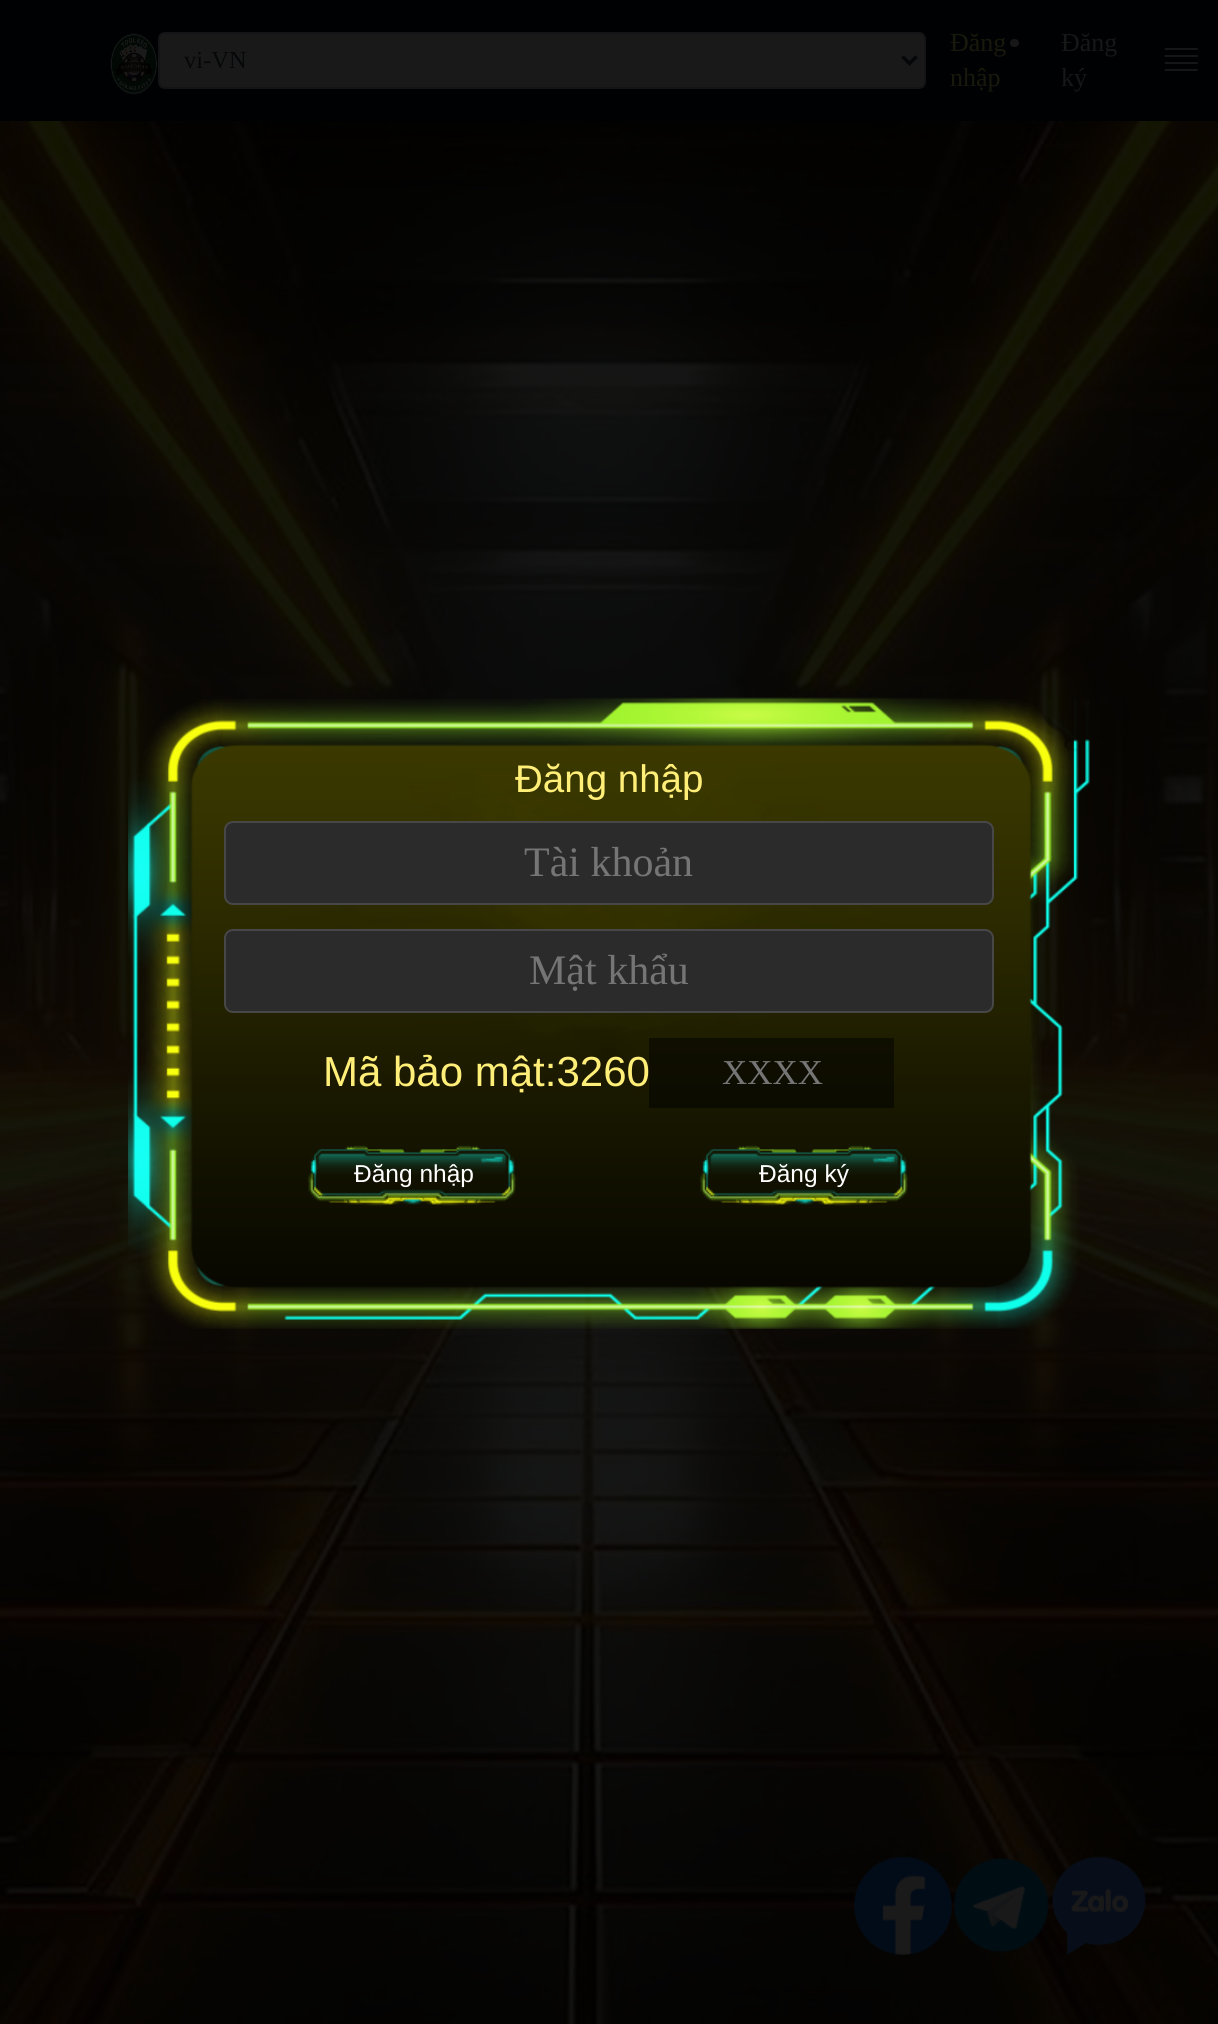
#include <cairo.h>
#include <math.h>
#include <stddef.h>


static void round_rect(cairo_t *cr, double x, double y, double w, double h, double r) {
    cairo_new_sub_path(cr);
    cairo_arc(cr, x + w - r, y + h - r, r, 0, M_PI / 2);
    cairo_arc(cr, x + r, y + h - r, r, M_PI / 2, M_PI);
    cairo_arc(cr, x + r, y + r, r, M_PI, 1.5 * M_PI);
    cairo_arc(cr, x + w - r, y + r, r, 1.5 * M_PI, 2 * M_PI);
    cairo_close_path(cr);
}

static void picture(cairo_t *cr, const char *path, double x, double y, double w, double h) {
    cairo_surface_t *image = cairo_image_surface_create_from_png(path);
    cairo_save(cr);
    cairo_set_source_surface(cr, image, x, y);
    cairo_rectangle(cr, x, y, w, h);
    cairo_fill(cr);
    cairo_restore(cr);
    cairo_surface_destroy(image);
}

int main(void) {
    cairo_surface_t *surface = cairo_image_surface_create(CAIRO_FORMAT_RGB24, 1218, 2024);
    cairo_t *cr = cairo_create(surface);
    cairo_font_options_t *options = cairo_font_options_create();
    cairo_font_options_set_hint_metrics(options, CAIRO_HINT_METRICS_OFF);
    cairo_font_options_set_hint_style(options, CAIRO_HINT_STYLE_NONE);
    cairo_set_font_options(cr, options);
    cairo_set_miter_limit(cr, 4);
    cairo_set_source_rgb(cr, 1, 1, 1);
    cairo_paint(cr);
    cairo_set_source_rgb(cr, 0, 0.004, 0.008);
    cairo_rectangle(cr, 0, 0, 1218, 121);
    cairo_fill(cr);
    picture(cr, "img1.png", 110, 33, 48, 62);
    cairo_set_source_rgb(cr, 0.098, 0.098, 0.098);
    round_rect(cr, 159, 33, 765, 55, 4);
    cairo_fill(cr);
    round_rect(cr, 159, 33, 766, 55, 6);
    cairo_set_source_rgb(cr, 0.082, 0.082, 0.086);
    cairo_stroke(cr);
    cairo_new_path(cr);
    cairo_move_to(cr, 902.5, 56.5);
    cairo_line_to(cr, 909.5, 63.5);
    cairo_line_to(cr, 916.5, 56.5);
    cairo_set_source_rgb(cr, 0.027, 0.031, 0.035);
    cairo_set_line_width(cr, 3.5);
    cairo_stroke(cr);
    cairo_select_font_face(cr, "Liberation Serif", CAIRO_FONT_SLANT_NORMAL, CAIRO_FONT_WEIGHT_NORMAL);
    cairo_set_font_size(cr, 24.5);
    cairo_move_to(cr, 184, 68);
    cairo_show_text(cr, "vi-VN");
    cairo_set_font_size(cr, 26);
    cairo_set_source_rgb(cr, 0.098, 0.094, 0.047);
    cairo_move_to(cr, 950, 51);
    cairo_show_text(cr, "Đăng");
    cairo_move_to(cr, 950, 86);
    cairo_show_text(cr, "nhập");
    cairo_set_source_rgb(cr, 0.09, 0.09, 0.09);
    round_rect(cr, 1010, 39, 9, 8, 4);
    cairo_fill(cr);
    cairo_move_to(cr, 1061, 51);
    cairo_show_text(cr, "Đăng");
    cairo_move_to(cr, 1061, 86);
    cairo_show_text(cr, "ký");
    cairo_new_path(cr);
    cairo_move_to(cr, 1197, 56);
    cairo_line_to(cr, 1165.5, 56);
    cairo_move_to(cr, 1197, 49);
    cairo_line_to(cr, 1165.5, 49);
    cairo_move_to(cr, 1197, 63);
    cairo_line_to(cr, 1165.5, 63);
    cairo_move_to(cr, 1197, 70);
    cairo_line_to(cr, 1165.5, 70);
    cairo_set_source_rgb(cr, 0.098, 0.098, 0.098);
    cairo_set_line_width(cr, 1.8);
    cairo_set_line_cap(cr, CAIRO_LINE_CAP_ROUND);
    cairo_set_line_join(cr, CAIRO_LINE_JOIN_ROUND);
    cairo_stroke(cr);
    picture(cr, "img2.png", 0, 121, 1218, 1903);
    picture(cr, "img3.png", 128, 697, 962, 632);
    cairo_select_font_face(cr, "Liberation Sans", CAIRO_FONT_SLANT_NORMAL, CAIRO_FONT_WEIGHT_NORMAL);
    cairo_set_font_size(cr, 38.5);
    cairo_set_source_rgb(cr, 1, 0.933, 0.471);
    cairo_move_to(cr, 515, 792);
    cairo_show_text(cr, "Đăng nhập");
    cairo_set_source_rgb(cr, 0.169, 0.169, 0.169);
    round_rect(cr, 225, 822, 768, 82, 8);
    cairo_fill_preserve(cr);
    cairo_set_source_rgb(cr, 0.278, 0.278, 0.278);
    cairo_set_line_width(cr, 2);
    cairo_set_line_cap(cr, CAIRO_LINE_CAP_BUTT);
    cairo_set_line_join(cr, CAIRO_LINE_JOIN_MITER);
    cairo_stroke(cr);
    cairo_select_font_face(cr, "Liberation Serif", CAIRO_FONT_SLANT_NORMAL, CAIRO_FONT_WEIGHT_NORMAL);
    cairo_set_font_size(cr, 42);
    cairo_set_source_rgb(cr, 0.459, 0.459, 0.459);
    cairo_move_to(cr, 524, 876);
    cairo_show_text(cr, "Tài khoản");
    cairo_set_source_rgb(cr, 0.169, 0.169, 0.169);
    round_rect(cr, 225, 930, 768, 82, 8);
    cairo_fill_preserve(cr);
    cairo_set_source_rgb(cr, 0.278, 0.278, 0.278);
    cairo_stroke(cr);
    cairo_set_source_rgb(cr, 0.459, 0.459, 0.459);
    cairo_move_to(cr, 529, 984);
    cairo_show_text(cr, "Mật khẩu");
    cairo_select_font_face(cr, "Liberation Sans", CAIRO_FONT_SLANT_NORMAL, CAIRO_FONT_WEIGHT_NORMAL);
    cairo_set_source_rgb(cr, 1, 0.933, 0.471);
    cairo_move_to(cr, 323, 1086);
    cairo_show_text(cr, "Mã bảo mật:3260");
    cairo_set_source_rgba(cr, 0, 0, 0, 0.5);
    cairo_rectangle(cr, 649, 1038, 245, 70);
    cairo_fill(cr);
    cairo_select_font_face(cr, "Liberation Serif", CAIRO_FONT_SLANT_NORMAL, CAIRO_FONT_WEIGHT_NORMAL);
    cairo_set_font_size(cr, 35);
    cairo_set_source_rgb(cr, 0.459, 0.459, 0.459);
    cairo_move_to(cr, 722, 1084);
    cairo_show_text(cr, "XXXX");
    picture(cr, "img4.png", 308, 1145, 208, 61);
    cairo_select_font_face(cr, "Liberation Sans", CAIRO_FONT_SLANT_NORMAL, CAIRO_FONT_WEIGHT_NORMAL);
    cairo_set_font_size(cr, 24.5);
    cairo_set_source_rgb(cr, 1, 1, 1);
    cairo_move_to(cr, 354, 1182);
    cairo_show_text(cr, "Đăng nhập");
    picture(cr, "img5.png", 700, 1145, 208, 61);
    cairo_move_to(cr, 759, 1182);
    cairo_show_text(cr, "Đăng ký");
    picture(cr, "img6.png", 854, 1856, 98, 99);
    picture(cr, "img7.png", 954, 1857, 96, 96);
    picture(cr, "img8.png", 1052, 1856, 94, 99);
    cairo_surface_write_to_png(surface, "page.png");
    cairo_font_options_destroy(options);
    cairo_destroy(cr);
    cairo_surface_destroy(surface);
    return 0;
}
